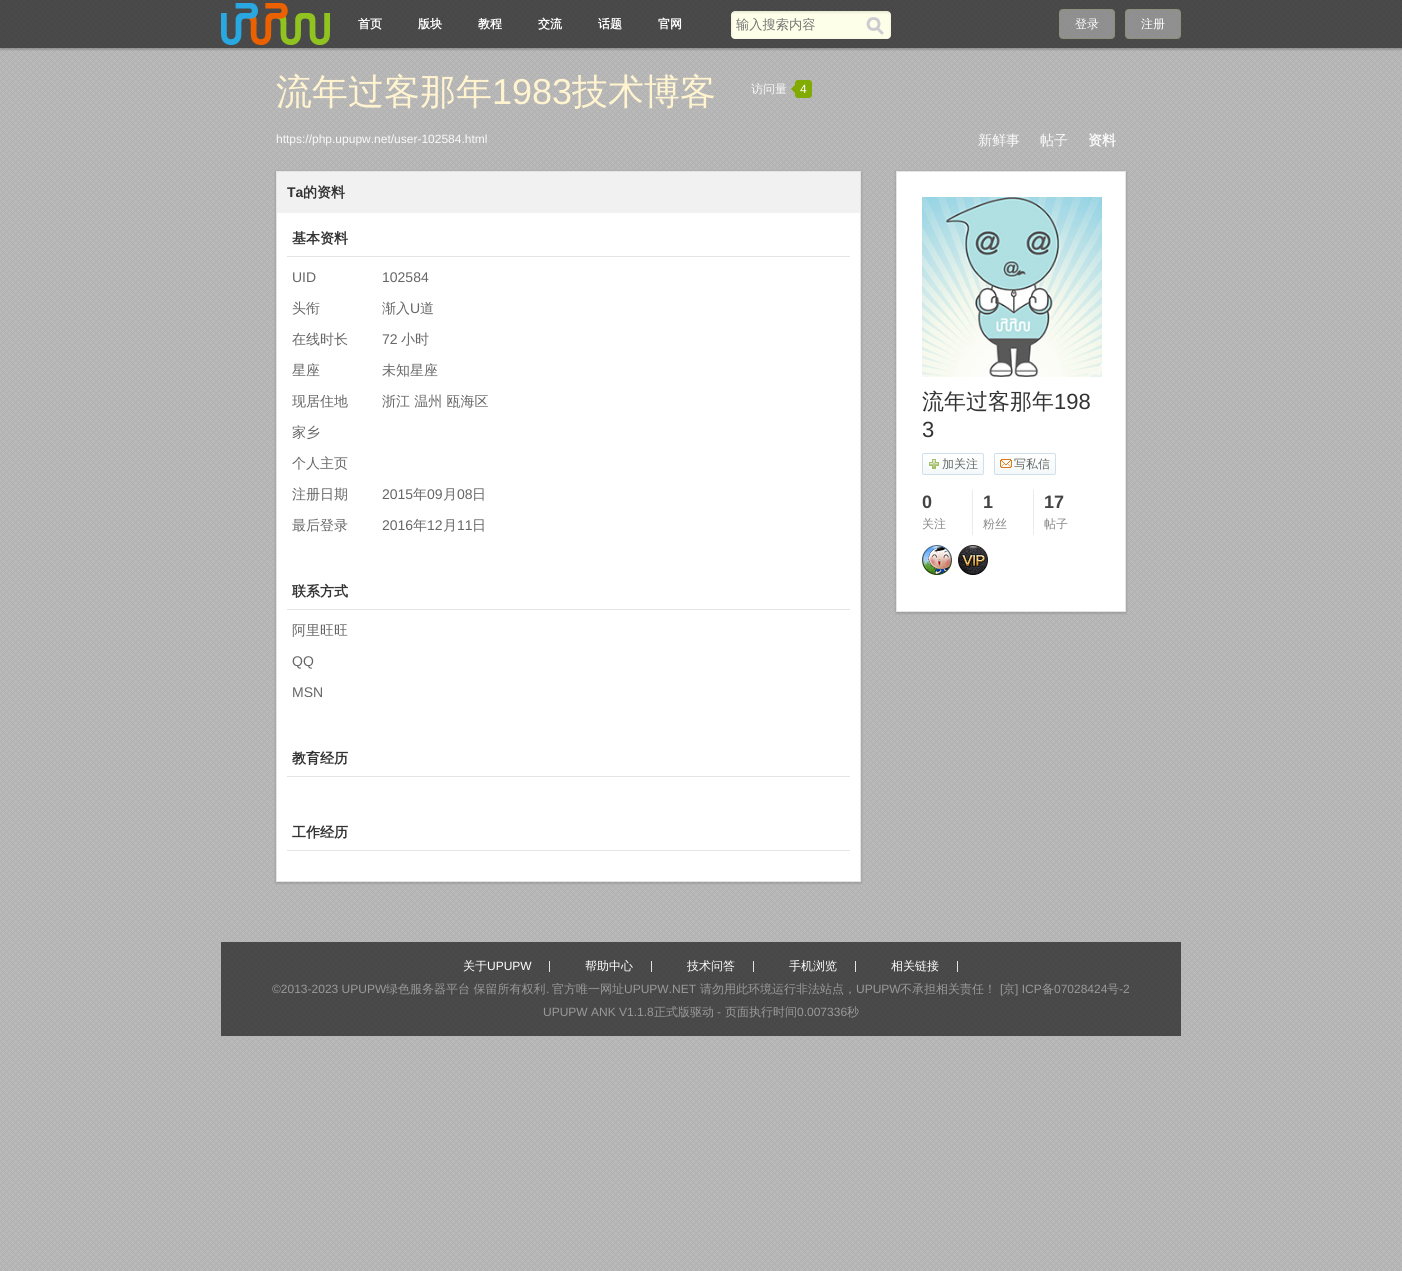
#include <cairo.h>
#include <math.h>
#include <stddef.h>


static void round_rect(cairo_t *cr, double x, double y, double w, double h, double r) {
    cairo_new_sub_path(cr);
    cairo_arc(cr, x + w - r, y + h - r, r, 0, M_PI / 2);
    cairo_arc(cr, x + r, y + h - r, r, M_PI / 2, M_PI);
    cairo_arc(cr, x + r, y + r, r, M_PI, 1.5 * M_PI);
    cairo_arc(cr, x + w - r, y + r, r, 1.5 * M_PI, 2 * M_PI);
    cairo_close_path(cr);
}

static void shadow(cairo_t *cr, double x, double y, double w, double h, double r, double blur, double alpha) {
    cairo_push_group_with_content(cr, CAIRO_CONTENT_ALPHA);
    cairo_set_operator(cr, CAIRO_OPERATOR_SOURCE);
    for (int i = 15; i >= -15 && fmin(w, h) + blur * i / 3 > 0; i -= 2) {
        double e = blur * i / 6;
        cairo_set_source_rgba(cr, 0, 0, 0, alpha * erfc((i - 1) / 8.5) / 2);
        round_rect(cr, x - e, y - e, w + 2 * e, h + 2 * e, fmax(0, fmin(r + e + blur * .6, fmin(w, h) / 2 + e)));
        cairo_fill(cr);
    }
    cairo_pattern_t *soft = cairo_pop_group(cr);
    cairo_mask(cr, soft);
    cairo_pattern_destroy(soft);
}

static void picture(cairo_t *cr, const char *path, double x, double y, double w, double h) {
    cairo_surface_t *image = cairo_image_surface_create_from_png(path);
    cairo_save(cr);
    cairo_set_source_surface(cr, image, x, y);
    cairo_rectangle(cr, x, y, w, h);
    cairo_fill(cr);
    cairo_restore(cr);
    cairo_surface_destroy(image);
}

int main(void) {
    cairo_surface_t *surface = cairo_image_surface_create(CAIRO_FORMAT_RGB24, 1402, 1271);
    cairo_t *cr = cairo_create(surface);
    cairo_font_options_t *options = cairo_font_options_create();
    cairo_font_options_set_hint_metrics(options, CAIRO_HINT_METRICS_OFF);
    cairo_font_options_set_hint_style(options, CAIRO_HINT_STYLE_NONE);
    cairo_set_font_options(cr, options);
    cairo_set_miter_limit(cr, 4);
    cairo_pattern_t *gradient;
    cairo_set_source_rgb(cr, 1, 1, 1);
    cairo_paint(cr);
    picture(cr, "img1.png", 0, 0, 1402, 1271);
    cairo_save(cr);
    cairo_rectangle(cr, 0, 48, 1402, 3);
    cairo_clip(cr);
    cairo_set_source_rgb(cr, 0, 0, 0);
    shadow(cr, 0, 1, 1402, 48, 0, 1.5, 0.3);
    cairo_restore(cr);
    cairo_set_source_rgba(cr, 0, 0, 0, 0.6);
    cairo_rectangle(cr, 0, 0, 1402, 48);
    cairo_fill(cr);
    picture(cr, "img2.png", 221, 3, 109, 42);
    cairo_select_font_face(cr, "WenQuanYi Zen Hei", CAIRO_FONT_SLANT_NORMAL, CAIRO_FONT_WEIGHT_BOLD);
    cairo_set_font_size(cr, 12);
    cairo_set_source_rgb(cr, 1, 1, 1);
    cairo_move_to(cr, 358, 28);
    cairo_show_text(cr, "首页");
    cairo_move_to(cr, 418, 28);
    cairo_show_text(cr, "版块");
    cairo_move_to(cr, 478, 28);
    cairo_show_text(cr, "教程");
    cairo_move_to(cr, 538, 28);
    cairo_show_text(cr, "交流");
    cairo_move_to(cr, 598, 28);
    cairo_show_text(cr, "话题");
    cairo_move_to(cr, 658, 28);
    cairo_show_text(cr, "官网");
    picture(cr, "img3.png", 731, 11, 160, 28);
    cairo_select_font_face(cr, "WenQuanYi Zen Hei Medium", CAIRO_FONT_SLANT_NORMAL, CAIRO_FONT_WEIGHT_NORMAL);
    cairo_set_font_size(cr, 13.25);
    cairo_set_source_rgb(cr, 0.459, 0.459, 0.459);
    cairo_move_to(cr, 736, 29);
    cairo_show_text(cr, "输入搜索内容");
    picture(cr, "img4.png", 866, 17, 18, 18);
    picture(cr, "img5.png", 1109, 9, 6, 30);
    picture(cr, "img6.png", 1059, 9, 50, 30);
    cairo_set_font_size(cr, 12);
    cairo_set_source_rgb(cr, 1, 1, 1);
    cairo_move_to(cr, 1075, 28);
    cairo_show_text(cr, "登录");
    picture(cr, "img5.png", 1175, 9, 6, 30);
    picture(cr, "img6.png", 1125, 9, 50, 30);
    cairo_move_to(cr, 1141, 28);
    cairo_show_text(cr, "注册");
    cairo_set_font_size(cr, 36);
    cairo_set_source_rgb(cr, 1, 0.957, 0.812);
    cairo_move_to(cr, 276, 104);
    cairo_show_text(cr, "流年过客那年");
    cairo_select_font_face(cr, "Liberation Sans", CAIRO_FONT_SLANT_NORMAL, CAIRO_FONT_WEIGHT_NORMAL);
    cairo_move_to(cr, 492, 104);
    cairo_show_text(cr, "1983");
    cairo_select_font_face(cr, "WenQuanYi Zen Hei Medium", CAIRO_FONT_SLANT_NORMAL, CAIRO_FONT_WEIGHT_NORMAL);
    cairo_move_to(cr, 572, 104);
    cairo_show_text(cr, "技术博客");
    cairo_set_font_size(cr, 12);
    cairo_set_source_rgb(cr, 0.976, 0.976, 0.976);
    cairo_move_to(cr, 751, 93);
    cairo_show_text(cr, "访问量");
    cairo_set_source_rgb(cr, 0.506, 0.671, 0);
    round_rect(cr, 795, 80, 17, 18, 3);
    cairo_fill(cr);
    cairo_new_path(cr);
    cairo_move_to(cr, 796, 84);
    cairo_line_to(cr, 796, 94);
    cairo_line_to(cr, 791, 89);
    cairo_close_path(cr);
    cairo_fill(cr);
    cairo_select_font_face(cr, "Liberation Sans", CAIRO_FONT_SLANT_NORMAL, CAIRO_FONT_WEIGHT_NORMAL);
    cairo_set_source_rgb(cr, 1, 1, 1);
    cairo_move_to(cr, 800, 93);
    cairo_show_text(cr, "4");
    cairo_set_source_rgb(cr, 0.976, 0.976, 0.976);
    cairo_move_to(cr, 276, 143);
    cairo_show_text(cr, "https://php.upupw.net/user-102584.html");
    cairo_select_font_face(cr, "WenQuanYi Zen Hei Medium", CAIRO_FONT_SLANT_NORMAL, CAIRO_FONT_WEIGHT_NORMAL);
    cairo_set_font_size(cr, 14);
    cairo_move_to(cr, 978, 145);
    cairo_show_text(cr, "新鲜事");
    cairo_move_to(cr, 1040, 145);
    cairo_show_text(cr, "帖子");
    cairo_select_font_face(cr, "WenQuanYi Zen Hei", CAIRO_FONT_SLANT_NORMAL, CAIRO_FONT_WEIGHT_BOLD);
    cairo_move_to(cr, 1088, 145);
    cairo_show_text(cr, "资料");
    cairo_set_source_rgb(cr, 0, 0, 0);
    shadow(cr, 276, 172, 585, 711, 0, 1.5, 0.2);
    cairo_set_source_rgb(cr, 1, 1, 1);
    cairo_rectangle(cr, 277, 213, 583, 668);
    cairo_fill(cr);
    cairo_rectangle(cr, 276.5, 171.5, 584, 710);
    cairo_set_source_rgb(cr, 0.894, 0.894, 0.894);
    cairo_set_line_width(cr, 1);
    cairo_stroke(cr);
    cairo_set_source_rgb(cr, 0.945, 0.945, 0.945);
    cairo_rectangle(cr, 277, 172, 583, 41);
    cairo_fill(cr);
    cairo_select_font_face(cr, "Liberation Sans", CAIRO_FONT_SLANT_NORMAL, CAIRO_FONT_WEIGHT_BOLD);
    cairo_set_source_rgb(cr, 0.2, 0.2, 0.2);
    cairo_move_to(cr, 287, 197);
    cairo_show_text(cr, "Ta");
    cairo_select_font_face(cr, "WenQuanYi Zen Hei", CAIRO_FONT_SLANT_NORMAL, CAIRO_FONT_WEIGHT_BOLD);
    cairo_move_to(cr, 303, 197);
    cairo_show_text(cr, "的资料");
    cairo_set_source_rgb(cr, 0.894, 0.894, 0.894);
    cairo_rectangle(cr, 287, 256, 563, 1);
    cairo_fill(cr);
    cairo_set_source_rgb(cr, 0.2, 0.2, 0.2);
    cairo_move_to(cr, 292, 243);
    cairo_show_text(cr, "基本资料");
    cairo_select_font_face(cr, "Liberation Sans", CAIRO_FONT_SLANT_NORMAL, CAIRO_FONT_WEIGHT_NORMAL);
    cairo_set_source_rgb(cr, 0.4, 0.4, 0.4);
    cairo_move_to(cr, 292, 282);
    cairo_show_text(cr, "UID");
    cairo_move_to(cr, 382, 282);
    cairo_show_text(cr, "102584");
    cairo_select_font_face(cr, "WenQuanYi Zen Hei Medium", CAIRO_FONT_SLANT_NORMAL, CAIRO_FONT_WEIGHT_NORMAL);
    cairo_move_to(cr, 292, 313);
    cairo_show_text(cr, "头衔");
    cairo_move_to(cr, 382, 313);
    cairo_show_text(cr, "渐入");
    cairo_select_font_face(cr, "Liberation Sans", CAIRO_FONT_SLANT_NORMAL, CAIRO_FONT_WEIGHT_NORMAL);
    cairo_move_to(cr, 410, 313);
    cairo_show_text(cr, "U");
    cairo_select_font_face(cr, "WenQuanYi Zen Hei Medium", CAIRO_FONT_SLANT_NORMAL, CAIRO_FONT_WEIGHT_NORMAL);
    cairo_move_to(cr, 420, 313);
    cairo_show_text(cr, "道");
    cairo_move_to(cr, 292, 344);
    cairo_show_text(cr, "在线时长");
    cairo_select_font_face(cr, "Liberation Sans", CAIRO_FONT_SLANT_NORMAL, CAIRO_FONT_WEIGHT_NORMAL);
    cairo_move_to(cr, 382, 344);
    cairo_show_text(cr, "72");
    cairo_select_font_face(cr, "WenQuanYi Zen Hei Medium", CAIRO_FONT_SLANT_NORMAL, CAIRO_FONT_WEIGHT_NORMAL);
    cairo_move_to(cr, 401, 344);
    cairo_show_text(cr, "小时");
    cairo_move_to(cr, 292, 375);
    cairo_show_text(cr, "星座");
    cairo_move_to(cr, 382, 375);
    cairo_show_text(cr, "未知星座");
    cairo_move_to(cr, 292, 406);
    cairo_show_text(cr, "现居住地");
    cairo_move_to(cr, 382, 406);
    cairo_show_text(cr, "浙江 温州 瓯海区");
    cairo_move_to(cr, 292, 437);
    cairo_show_text(cr, "家乡");
    cairo_move_to(cr, 292, 468);
    cairo_show_text(cr, "个人主页");
    cairo_move_to(cr, 292, 499);
    cairo_show_text(cr, "注册日期");
    cairo_select_font_face(cr, "Liberation Sans", CAIRO_FONT_SLANT_NORMAL, CAIRO_FONT_WEIGHT_NORMAL);
    cairo_move_to(cr, 382, 499);
    cairo_show_text(cr, "2015");
    cairo_select_font_face(cr, "WenQuanYi Zen Hei Medium", CAIRO_FONT_SLANT_NORMAL, CAIRO_FONT_WEIGHT_NORMAL);
    cairo_move_to(cr, 413, 499);
    cairo_show_text(cr, "年");
    cairo_select_font_face(cr, "Liberation Sans", CAIRO_FONT_SLANT_NORMAL, CAIRO_FONT_WEIGHT_NORMAL);
    cairo_move_to(cr, 427, 499);
    cairo_show_text(cr, "09");
    cairo_select_font_face(cr, "WenQuanYi Zen Hei Medium", CAIRO_FONT_SLANT_NORMAL, CAIRO_FONT_WEIGHT_NORMAL);
    cairo_move_to(cr, 443, 499);
    cairo_show_text(cr, "月");
    cairo_select_font_face(cr, "Liberation Sans", CAIRO_FONT_SLANT_NORMAL, CAIRO_FONT_WEIGHT_NORMAL);
    cairo_move_to(cr, 457, 499);
    cairo_show_text(cr, "08");
    cairo_select_font_face(cr, "WenQuanYi Zen Hei Medium", CAIRO_FONT_SLANT_NORMAL, CAIRO_FONT_WEIGHT_NORMAL);
    cairo_move_to(cr, 472, 499);
    cairo_show_text(cr, "日");
    cairo_move_to(cr, 292, 530);
    cairo_show_text(cr, "最后登录");
    cairo_select_font_face(cr, "Liberation Sans", CAIRO_FONT_SLANT_NORMAL, CAIRO_FONT_WEIGHT_NORMAL);
    cairo_move_to(cr, 382, 530);
    cairo_show_text(cr, "2016");
    cairo_select_font_face(cr, "WenQuanYi Zen Hei Medium", CAIRO_FONT_SLANT_NORMAL, CAIRO_FONT_WEIGHT_NORMAL);
    cairo_move_to(cr, 413, 530);
    cairo_show_text(cr, "年");
    cairo_select_font_face(cr, "Liberation Sans", CAIRO_FONT_SLANT_NORMAL, CAIRO_FONT_WEIGHT_NORMAL);
    cairo_move_to(cr, 427, 530);
    cairo_show_text(cr, "12");
    cairo_select_font_face(cr, "WenQuanYi Zen Hei Medium", CAIRO_FONT_SLANT_NORMAL, CAIRO_FONT_WEIGHT_NORMAL);
    cairo_move_to(cr, 443, 530);
    cairo_show_text(cr, "月");
    cairo_select_font_face(cr, "Liberation Sans", CAIRO_FONT_SLANT_NORMAL, CAIRO_FONT_WEIGHT_NORMAL);
    cairo_move_to(cr, 457, 530);
    cairo_show_text(cr, "11");
    cairo_select_font_face(cr, "WenQuanYi Zen Hei Medium", CAIRO_FONT_SLANT_NORMAL, CAIRO_FONT_WEIGHT_NORMAL);
    cairo_move_to(cr, 472, 530);
    cairo_show_text(cr, "日");
    cairo_set_source_rgb(cr, 0.894, 0.894, 0.894);
    cairo_rectangle(cr, 287, 609, 563, 1);
    cairo_fill(cr);
    cairo_select_font_face(cr, "WenQuanYi Zen Hei", CAIRO_FONT_SLANT_NORMAL, CAIRO_FONT_WEIGHT_BOLD);
    cairo_set_source_rgb(cr, 0.2, 0.2, 0.2);
    cairo_move_to(cr, 292, 596);
    cairo_show_text(cr, "联系方式");
    cairo_select_font_face(cr, "WenQuanYi Zen Hei Medium", CAIRO_FONT_SLANT_NORMAL, CAIRO_FONT_WEIGHT_NORMAL);
    cairo_set_source_rgb(cr, 0.4, 0.4, 0.4);
    cairo_move_to(cr, 292, 635);
    cairo_show_text(cr, "阿里旺旺");
    cairo_select_font_face(cr, "Liberation Sans", CAIRO_FONT_SLANT_NORMAL, CAIRO_FONT_WEIGHT_NORMAL);
    cairo_move_to(cr, 292, 666);
    cairo_show_text(cr, "QQ");
    cairo_move_to(cr, 292, 697);
    cairo_show_text(cr, "MSN");
    cairo_set_source_rgb(cr, 0.894, 0.894, 0.894);
    cairo_rectangle(cr, 287, 776, 563, 1);
    cairo_fill(cr);
    cairo_select_font_face(cr, "WenQuanYi Zen Hei", CAIRO_FONT_SLANT_NORMAL, CAIRO_FONT_WEIGHT_BOLD);
    cairo_set_source_rgb(cr, 0.2, 0.2, 0.2);
    cairo_move_to(cr, 292, 763);
    cairo_show_text(cr, "教育经历");
    cairo_set_source_rgb(cr, 0.894, 0.894, 0.894);
    cairo_rectangle(cr, 287, 850, 563, 1);
    cairo_fill(cr);
    cairo_set_source_rgb(cr, 0.2, 0.2, 0.2);
    cairo_move_to(cr, 292, 837);
    cairo_show_text(cr, "工作经历");
    cairo_set_source_rgb(cr, 0, 0, 0);
    shadow(cr, 896, 172, 230, 441, 0, 1.5, 0.2);
    cairo_set_source_rgb(cr, 1, 1, 1);
    cairo_rectangle(cr, 896.5, 171.5, 229, 440);
    cairo_fill_preserve(cr);
    cairo_set_source_rgb(cr, 0.894, 0.894, 0.894);
    cairo_stroke(cr);
    picture(cr, "img7.png", 922, 197, 180, 180);
    cairo_select_font_face(cr, "WenQuanYi Zen Hei Medium", CAIRO_FONT_SLANT_NORMAL, CAIRO_FONT_WEIGHT_NORMAL);
    cairo_set_font_size(cr, 22);
    cairo_set_source_rgb(cr, 0.2, 0.2, 0.2);
    cairo_move_to(cr, 922, 409);
    cairo_show_text(cr, "流年过客那年");
    cairo_select_font_face(cr, "Liberation Sans", CAIRO_FONT_SLANT_NORMAL, CAIRO_FONT_WEIGHT_NORMAL);
    cairo_move_to(cr, 1054, 409);
    cairo_show_text(cr, "198");
    cairo_move_to(cr, 922, 437);
    cairo_show_text(cr, "3");
    gradient = cairo_pattern_create_linear(953, 454, 953, 474);
    cairo_pattern_add_color_stop_rgba(gradient, 0, 1, 1, 1, 1);
    cairo_pattern_add_color_stop_rgba(gradient, 1, 0.953, 0.973, 0.976, 1);
    cairo_set_source(cr, gradient);
    cairo_pattern_destroy(gradient);
    cairo_rectangle(cr, 923, 458, 60, 16);
    cairo_fill(cr);
    round_rect(cr, 922.5, 453.5, 61, 21, 1.5);
    cairo_set_source_rgb(cr, 0.816, 0.875, 0.918);
    cairo_stroke(cr);
    picture(cr, "img8.png", 929, 459, 10, 10);
    cairo_select_font_face(cr, "WenQuanYi Zen Hei Medium", CAIRO_FONT_SLANT_NORMAL, CAIRO_FONT_WEIGHT_NORMAL);
    cairo_set_font_size(cr, 12);
    cairo_set_source_rgb(cr, 0.4, 0.4, 0.4);
    cairo_move_to(cr, 942, 468);
    cairo_show_text(cr, "加关注");
    gradient = cairo_pattern_create_linear(1025, 454, 1025, 474);
    cairo_pattern_add_color_stop_rgba(gradient, 0, 1, 1, 1, 1);
    cairo_pattern_add_color_stop_rgba(gradient, 1, 0.953, 0.973, 0.976, 1);
    cairo_set_source(cr, gradient);
    cairo_pattern_destroy(gradient);
    cairo_rectangle(cr, 995, 458, 60, 16);
    cairo_fill(cr);
    round_rect(cr, 994.5, 453.5, 61, 21, 1.5);
    cairo_set_source_rgb(cr, 0.816, 0.875, 0.918);
    cairo_stroke(cr);
    picture(cr, "img9.png", 1000, 459, 12, 9);
    cairo_set_source_rgb(cr, 0.4, 0.4, 0.4);
    cairo_move_to(cr, 1014, 468);
    cairo_show_text(cr, "写私信");
    cairo_set_source_rgb(cr, 0.918, 0.918, 0.918);
    cairo_rectangle(cr, 972, 490, 1, 45);
    cairo_fill(cr);
    cairo_select_font_face(cr, "Liberation Sans", CAIRO_FONT_SLANT_NORMAL, CAIRO_FONT_WEIGHT_BOLD);
    cairo_set_font_size(cr, 18);
    cairo_set_source_rgb(cr, 0.267, 0.267, 0.267);
    cairo_move_to(cr, 922, 508);
    cairo_show_text(cr, "0");
    cairo_select_font_face(cr, "WenQuanYi Zen Hei Medium", CAIRO_FONT_SLANT_NORMAL, CAIRO_FONT_WEIGHT_NORMAL);
    cairo_set_font_size(cr, 12);
    cairo_set_source_rgb(cr, 0.533, 0.533, 0.533);
    cairo_move_to(cr, 922, 528);
    cairo_show_text(cr, "关注");
    cairo_set_source_rgb(cr, 0.918, 0.918, 0.918);
    cairo_rectangle(cr, 1033, 490, 1, 45);
    cairo_fill(cr);
    cairo_select_font_face(cr, "Liberation Sans", CAIRO_FONT_SLANT_NORMAL, CAIRO_FONT_WEIGHT_BOLD);
    cairo_set_font_size(cr, 18);
    cairo_set_source_rgb(cr, 0.267, 0.267, 0.267);
    cairo_move_to(cr, 983, 508);
    cairo_show_text(cr, "1");
    cairo_select_font_face(cr, "WenQuanYi Zen Hei Medium", CAIRO_FONT_SLANT_NORMAL, CAIRO_FONT_WEIGHT_NORMAL);
    cairo_set_font_size(cr, 12);
    cairo_set_source_rgb(cr, 0.533, 0.533, 0.533);
    cairo_move_to(cr, 983, 528);
    cairo_show_text(cr, "粉丝");
    cairo_select_font_face(cr, "Liberation Sans", CAIRO_FONT_SLANT_NORMAL, CAIRO_FONT_WEIGHT_BOLD);
    cairo_set_font_size(cr, 18);
    cairo_set_source_rgb(cr, 0.267, 0.267, 0.267);
    cairo_move_to(cr, 1044, 508);
    cairo_show_text(cr, "17");
    cairo_select_font_face(cr, "WenQuanYi Zen Hei Medium", CAIRO_FONT_SLANT_NORMAL, CAIRO_FONT_WEIGHT_NORMAL);
    cairo_set_font_size(cr, 12);
    cairo_set_source_rgb(cr, 0.533, 0.533, 0.533);
    cairo_move_to(cr, 1044, 528);
    cairo_show_text(cr, "帖子");
    picture(cr, "img10.png", 922, 545, 30, 30);
    picture(cr, "img11.png", 958, 545, 30, 30);
    cairo_set_source_rgba(cr, 0, 0, 0, 0.6);
    cairo_rectangle(cr, 221, 942, 960, 94);
    cairo_fill(cr);
    cairo_set_source_rgb(cr, 1, 1, 1);
    cairo_move_to(cr, 463, 970);
    cairo_show_text(cr, "关于");
    cairo_select_font_face(cr, "Liberation Sans", CAIRO_FONT_SLANT_NORMAL, CAIRO_FONT_WEIGHT_NORMAL);
    cairo_move_to(cr, 487, 970);
    cairo_show_text(cr, "UPUPW");
    cairo_set_source_rgb(cr, 0.89, 0.89, 0.89);
    cairo_rectangle(cr, 549, 961, 1, 11);
    cairo_fill(cr);
    cairo_select_font_face(cr, "WenQuanYi Zen Hei Medium", CAIRO_FONT_SLANT_NORMAL, CAIRO_FONT_WEIGHT_NORMAL);
    cairo_set_source_rgb(cr, 1, 1, 1);
    cairo_move_to(cr, 585, 970);
    cairo_show_text(cr, "帮助中心");
    cairo_set_source_rgb(cr, 0.89, 0.89, 0.89);
    cairo_rectangle(cr, 651, 961, 1, 11);
    cairo_fill(cr);
    cairo_set_source_rgb(cr, 1, 1, 1);
    cairo_move_to(cr, 687, 970);
    cairo_show_text(cr, "技术问答");
    cairo_set_source_rgb(cr, 0.89, 0.89, 0.89);
    cairo_rectangle(cr, 753, 961, 1, 11);
    cairo_fill(cr);
    cairo_set_source_rgb(cr, 1, 1, 1);
    cairo_move_to(cr, 789, 970);
    cairo_show_text(cr, "手机浏览");
    cairo_set_source_rgb(cr, 0.89, 0.89, 0.89);
    cairo_rectangle(cr, 855, 961, 1, 11);
    cairo_fill(cr);
    cairo_set_source_rgb(cr, 1, 1, 1);
    cairo_move_to(cr, 891, 970);
    cairo_show_text(cr, "相关链接");
    cairo_set_source_rgb(cr, 0.89, 0.89, 0.89);
    cairo_rectangle(cr, 957, 961, 1, 11);
    cairo_fill(cr);
    cairo_select_font_face(cr, "Liberation Sans", CAIRO_FONT_SLANT_NORMAL, CAIRO_FONT_WEIGHT_NORMAL);
    cairo_set_source_rgb(cr, 0.6, 0.6, 0.6);
    cairo_move_to(cr, 272, 993);
    cairo_show_text(cr, "©2013-2023 UPUPW");
    cairo_select_font_face(cr, "WenQuanYi Zen Hei Medium", CAIRO_FONT_SLANT_NORMAL, CAIRO_FONT_WEIGHT_NORMAL);
    cairo_move_to(cr, 386, 993);
    cairo_show_text(cr, "绿色服务器平台 保留所有权利");
    cairo_select_font_face(cr, "Liberation Sans", CAIRO_FONT_SLANT_NORMAL, CAIRO_FONT_WEIGHT_NORMAL);
    cairo_move_to(cr, 546, 993);
    cairo_show_text(cr, ".");
    cairo_select_font_face(cr, "WenQuanYi Zen Hei Medium", CAIRO_FONT_SLANT_NORMAL, CAIRO_FONT_WEIGHT_NORMAL);
    cairo_move_to(cr, 552, 993);
    cairo_show_text(cr, "官方唯一网址");
    cairo_select_font_face(cr, "Liberation Sans", CAIRO_FONT_SLANT_NORMAL, CAIRO_FONT_WEIGHT_NORMAL);
    cairo_move_to(cr, 624, 993);
    cairo_show_text(cr, "UPUPW.NET");
    cairo_select_font_face(cr, "WenQuanYi Zen Hei Medium", CAIRO_FONT_SLANT_NORMAL, CAIRO_FONT_WEIGHT_NORMAL);
    cairo_move_to(cr, 700, 993);
    cairo_show_text(cr, "请勿用此环境运行非法站点，");
    cairo_select_font_face(cr, "Liberation Sans", CAIRO_FONT_SLANT_NORMAL, CAIRO_FONT_WEIGHT_NORMAL);
    cairo_move_to(cr, 856, 993);
    cairo_show_text(cr, "UPUPW");
    cairo_select_font_face(cr, "WenQuanYi Zen Hei Medium", CAIRO_FONT_SLANT_NORMAL, CAIRO_FONT_WEIGHT_NORMAL);
    cairo_move_to(cr, 900, 993);
    cairo_show_text(cr, "不承担相关责任！");
    cairo_select_font_face(cr, "Liberation Sans", CAIRO_FONT_SLANT_NORMAL, CAIRO_FONT_WEIGHT_NORMAL);
    cairo_move_to(cr, 1000, 993);
    cairo_show_text(cr, "[");
    cairo_select_font_face(cr, "WenQuanYi Zen Hei Medium", CAIRO_FONT_SLANT_NORMAL, CAIRO_FONT_WEIGHT_NORMAL);
    cairo_move_to(cr, 1003, 993);
    cairo_show_text(cr, "京");
    cairo_select_font_face(cr, "Liberation Sans", CAIRO_FONT_SLANT_NORMAL, CAIRO_FONT_WEIGHT_NORMAL);
    cairo_move_to(cr, 1015, 993);
    cairo_show_text(cr, "] ICP");
    cairo_select_font_face(cr, "WenQuanYi Zen Hei Medium", CAIRO_FONT_SLANT_NORMAL, CAIRO_FONT_WEIGHT_NORMAL);
    cairo_move_to(cr, 1042, 993);
    cairo_show_text(cr, "备");
    cairo_select_font_face(cr, "Liberation Sans", CAIRO_FONT_SLANT_NORMAL, CAIRO_FONT_WEIGHT_NORMAL);
    cairo_move_to(cr, 1054, 993);
    cairo_show_text(cr, "07028424");
    cairo_select_font_face(cr, "WenQuanYi Zen Hei Medium", CAIRO_FONT_SLANT_NORMAL, CAIRO_FONT_WEIGHT_NORMAL);
    cairo_move_to(cr, 1107, 993);
    cairo_show_text(cr, "号");
    cairo_select_font_face(cr, "Liberation Sans", CAIRO_FONT_SLANT_NORMAL, CAIRO_FONT_WEIGHT_NORMAL);
    cairo_move_to(cr, 1119, 993);
    cairo_show_text(cr, "-2");
    cairo_move_to(cr, 543, 1016);
    cairo_show_text(cr, "UPUPW ANK V1.1.8");
    cairo_select_font_face(cr, "WenQuanYi Zen Hei Medium", CAIRO_FONT_SLANT_NORMAL, CAIRO_FONT_WEIGHT_NORMAL);
    cairo_move_to(cr, 654, 1016);
    cairo_show_text(cr, "正式版驱动");
    cairo_select_font_face(cr, "Liberation Sans", CAIRO_FONT_SLANT_NORMAL, CAIRO_FONT_WEIGHT_NORMAL);
    cairo_move_to(cr, 717, 1016);
    cairo_show_text(cr, "-");
    cairo_select_font_face(cr, "WenQuanYi Zen Hei Medium", CAIRO_FONT_SLANT_NORMAL, CAIRO_FONT_WEIGHT_NORMAL);
    cairo_move_to(cr, 725, 1016);
    cairo_show_text(cr, "页面执行时间");
    cairo_select_font_face(cr, "Liberation Sans", CAIRO_FONT_SLANT_NORMAL, CAIRO_FONT_WEIGHT_NORMAL);
    cairo_move_to(cr, 797, 1016);
    cairo_show_text(cr, "0.007336");
    cairo_select_font_face(cr, "WenQuanYi Zen Hei Medium", CAIRO_FONT_SLANT_NORMAL, CAIRO_FONT_WEIGHT_NORMAL);
    cairo_move_to(cr, 847, 1016);
    cairo_show_text(cr, "秒");
    cairo_surface_write_to_png(surface, "page.png");
    cairo_font_options_destroy(options);
    cairo_destroy(cr);
    cairo_surface_destroy(surface);
    return 0;
}
